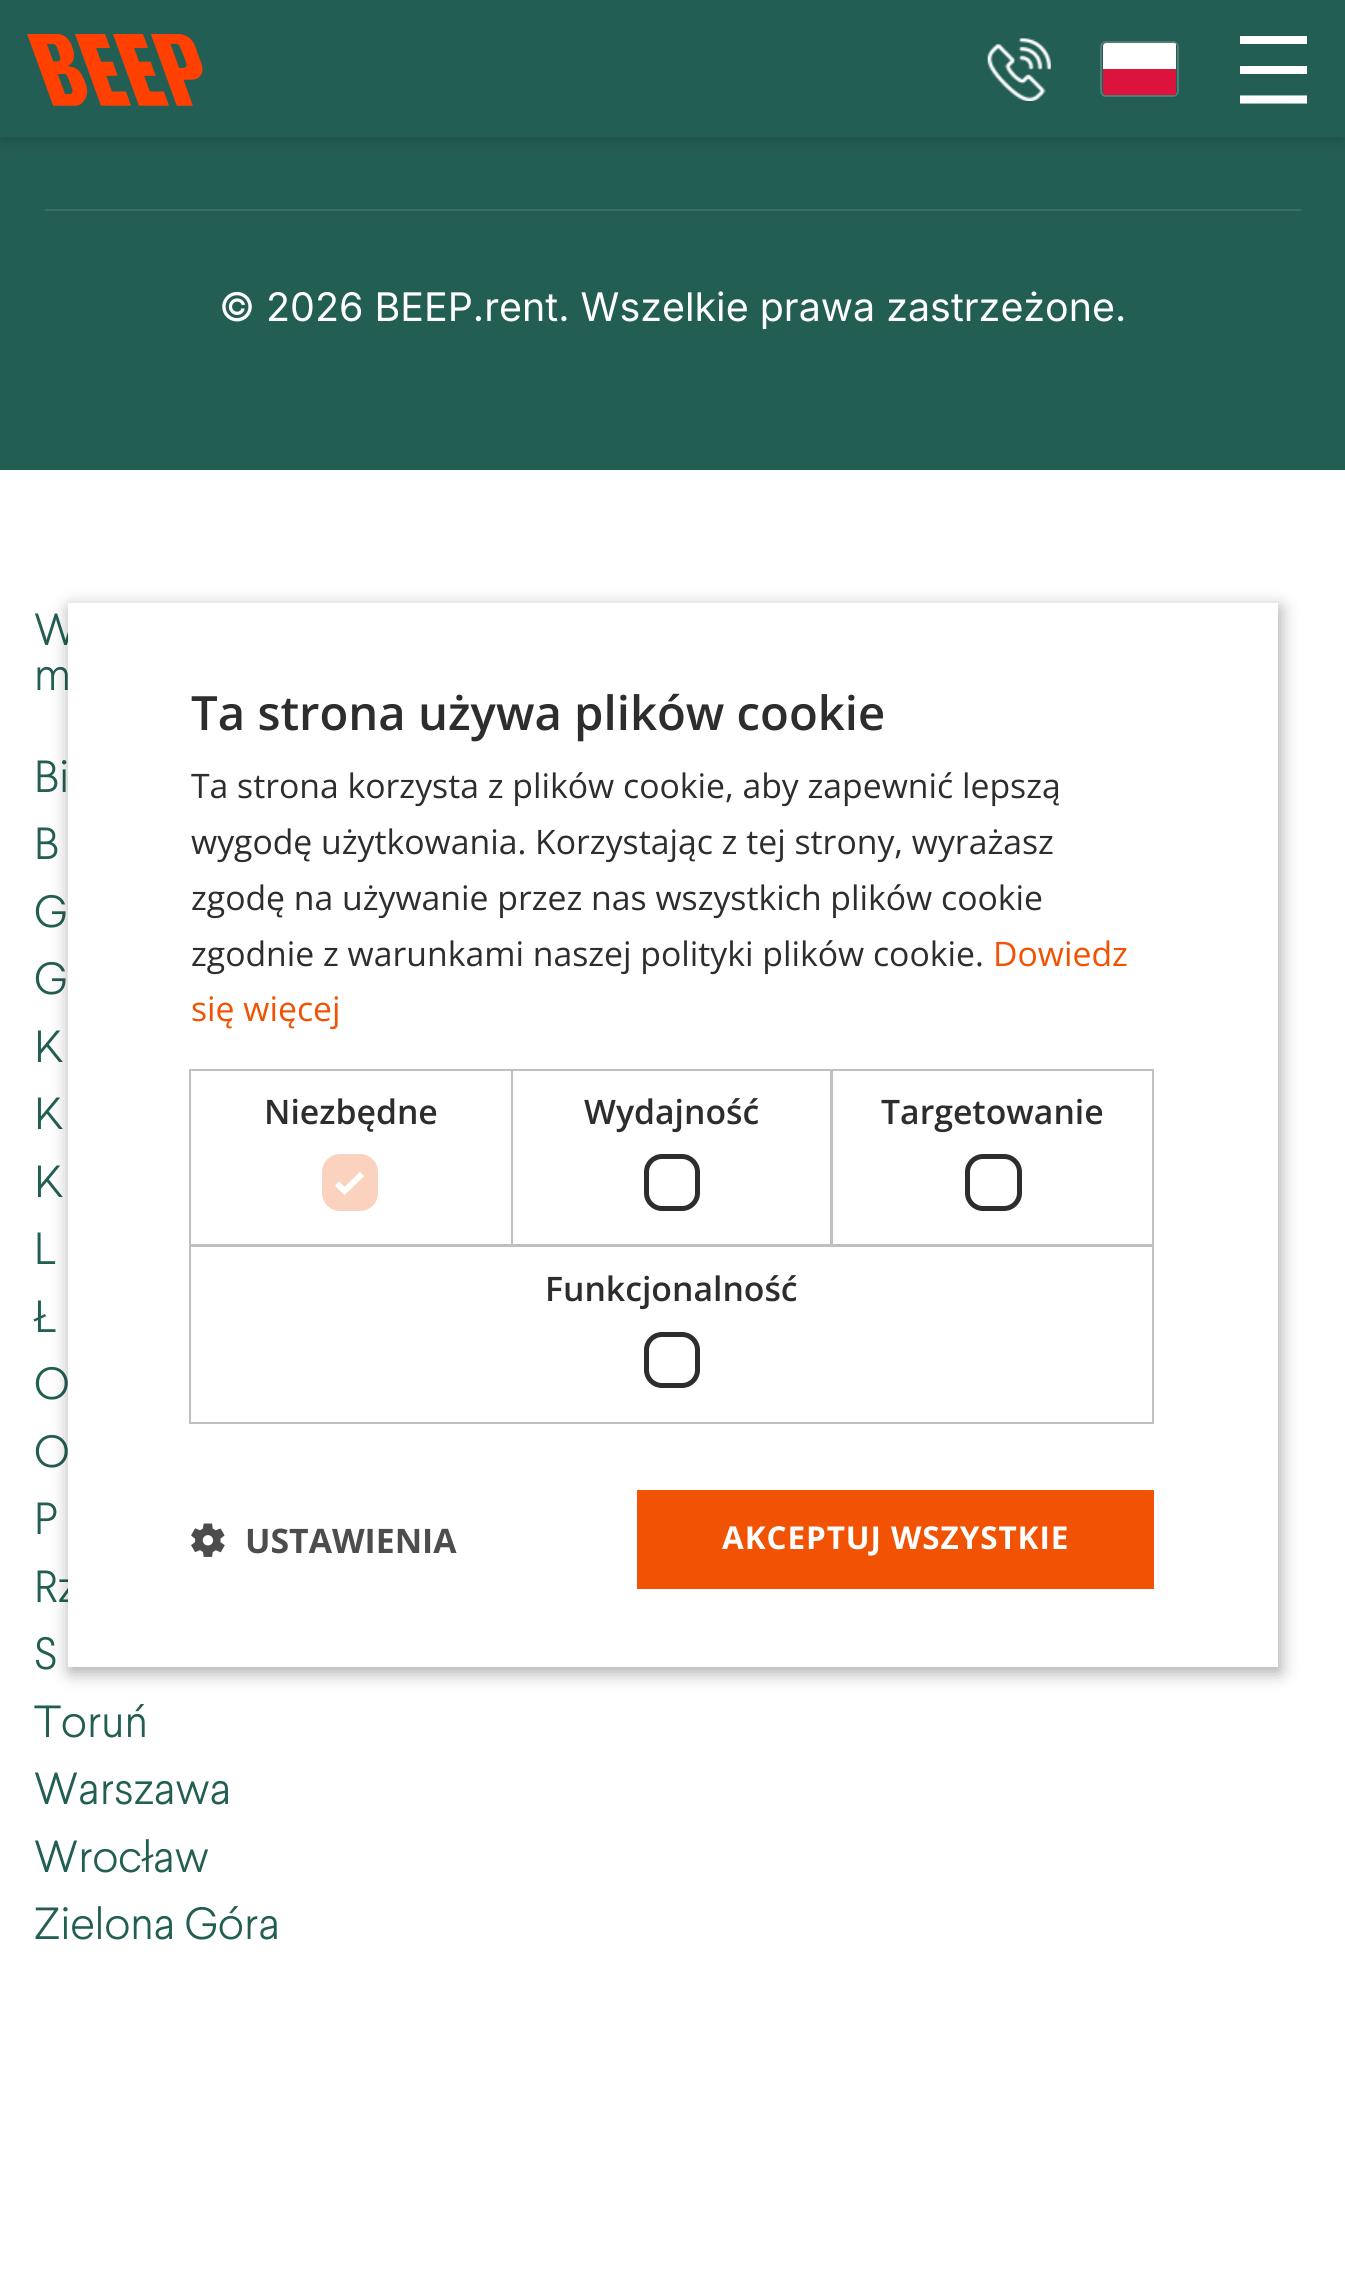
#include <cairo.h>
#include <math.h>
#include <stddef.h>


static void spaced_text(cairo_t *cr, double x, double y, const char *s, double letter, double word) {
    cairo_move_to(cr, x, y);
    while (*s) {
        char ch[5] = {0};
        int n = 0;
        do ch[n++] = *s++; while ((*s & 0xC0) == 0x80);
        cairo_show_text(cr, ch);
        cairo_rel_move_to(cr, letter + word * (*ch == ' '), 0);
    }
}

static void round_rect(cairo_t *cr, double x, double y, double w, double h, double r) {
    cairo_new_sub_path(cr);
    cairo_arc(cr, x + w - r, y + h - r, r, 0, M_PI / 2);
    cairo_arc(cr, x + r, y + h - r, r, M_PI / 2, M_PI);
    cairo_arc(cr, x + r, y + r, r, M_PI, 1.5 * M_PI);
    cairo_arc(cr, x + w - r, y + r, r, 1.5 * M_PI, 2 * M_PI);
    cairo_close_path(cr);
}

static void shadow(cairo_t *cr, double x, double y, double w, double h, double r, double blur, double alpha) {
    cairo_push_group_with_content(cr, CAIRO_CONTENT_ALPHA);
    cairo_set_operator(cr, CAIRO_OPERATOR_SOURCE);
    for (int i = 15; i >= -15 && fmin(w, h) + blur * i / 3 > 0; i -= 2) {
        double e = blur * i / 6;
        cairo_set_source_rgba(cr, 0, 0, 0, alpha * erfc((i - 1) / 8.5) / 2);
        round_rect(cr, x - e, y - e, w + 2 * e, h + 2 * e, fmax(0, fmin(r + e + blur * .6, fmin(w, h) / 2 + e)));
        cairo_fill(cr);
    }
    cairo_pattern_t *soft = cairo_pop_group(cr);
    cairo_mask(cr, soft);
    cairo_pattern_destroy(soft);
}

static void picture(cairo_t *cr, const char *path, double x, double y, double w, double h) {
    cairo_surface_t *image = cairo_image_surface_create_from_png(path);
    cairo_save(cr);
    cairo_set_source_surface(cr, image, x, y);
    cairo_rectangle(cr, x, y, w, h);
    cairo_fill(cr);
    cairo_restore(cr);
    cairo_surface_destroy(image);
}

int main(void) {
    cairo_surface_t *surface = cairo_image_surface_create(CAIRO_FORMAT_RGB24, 1345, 2269);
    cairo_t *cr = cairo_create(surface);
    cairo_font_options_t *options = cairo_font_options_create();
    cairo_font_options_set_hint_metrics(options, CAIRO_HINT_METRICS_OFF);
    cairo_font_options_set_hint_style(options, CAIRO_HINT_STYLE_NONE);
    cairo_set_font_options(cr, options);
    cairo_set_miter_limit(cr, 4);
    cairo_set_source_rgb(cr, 1, 1, 1);
    cairo_paint(cr);
    cairo_set_source_rgb(cr, 0.137, 0.369, 0.325);
    cairo_rectangle(cr, 0, 137, 1345, 333);
    cairo_fill(cr);
    cairo_set_source_rgb(cr, 0, 0, 0);
    shadow(cr, 2, 7, 1341, 133, 0, 4.5, 0.06);
    shadow(cr, 2, 11, 1341, 133, 0, 7, 0.1);
    cairo_set_source_rgb(cr, 0.133, 0.369, 0.329);
    cairo_rectangle(cr, 0, 0, 1345, 137);
    cairo_fill(cr);
    picture(cr, "img1.png", 27, 34, 176, 72);
    picture(cr, "img2.png", 987, 38, 64, 63);
    round_rect(cr, 1101, 42, 77, 54, 5);
    cairo_set_source_rgb(cr, 0.306, 0.494, 0.463);
    cairo_stroke(cr);
    cairo_save(cr);
    round_rect(cr, 1103, 43, 74, 52, 3);
    cairo_clip(cr);
    cairo_set_source_rgb(cr, 1, 1, 1);
    cairo_new_path(cr);
    cairo_move_to(cr, 1106, 43);
    cairo_line_to(cr, 1176, 43);
    cairo_line_to(cr, 1176, 69);
    cairo_line_to(cr, 1103, 69);
    cairo_line_to(cr, 1103, 46);
    cairo_curve_to(cr, 1103, 44.5, 1104.5, 43, 1106, 43);
    cairo_close_path(cr);
    cairo_fill(cr);
    cairo_set_source_rgb(cr, 0.863, 0.078, 0.235);
    cairo_new_path(cr);
    cairo_move_to(cr, 1103, 69);
    cairo_line_to(cr, 1176, 69);
    cairo_line_to(cr, 1176, 95);
    cairo_line_to(cr, 1106, 95);
    cairo_curve_to(cr, 1104.5, 95, 1103, 93.5, 1103, 92);
    cairo_close_path(cr);
    cairo_fill(cr);
    cairo_restore(cr);
    cairo_set_source_rgb(cr, 1, 1, 1);
    cairo_rectangle(cr, 1240, 36, 67, 8);
    cairo_fill(cr);
    cairo_rectangle(cr, 1240, 66, 67, 8);
    cairo_fill(cr);
    cairo_save(cr);
    cairo_rectangle(cr, 1240, 36, 67, 68);
    cairo_clip(cr);
    cairo_new_path(cr);
    cairo_move_to(cr, 1240, 99.5);
    cairo_line_to(cr, 1307, 99.5);
    cairo_set_line_width(cr, 8.1);
    cairo_set_line_cap(cr, CAIRO_LINE_CAP_SQUARE);
    cairo_stroke(cr);
    cairo_restore(cr);
    cairo_set_source_rgb(cr, 0.224, 0.431, 0.392);
    cairo_rectangle(cr, 45, 209, 1256, 2);
    cairo_fill(cr);
    cairo_select_font_face(cr, "Inter", CAIRO_FONT_SLANT_NORMAL, CAIRO_FONT_WEIGHT_NORMAL);
    cairo_set_font_size(cr, 39.4);
    cairo_set_source_rgb(cr, 1, 1, 1);
    cairo_move_to(cr, 219, 321);
    cairo_show_text(cr, "© 2026 BEEP.rent. Wszelkie prawa zastrzeżone.");
    cairo_select_font_face(cr, "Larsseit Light", CAIRO_FONT_SLANT_NORMAL, CAIRO_FONT_WEIGHT_NORMAL);
    cairo_set_font_size(cr, 45);
    cairo_set_source_rgb(cr, 0.137, 0.369, 0.325);
    cairo_move_to(cr, 34, 645);
    cairo_show_text(cr, "W");
    cairo_move_to(cr, 34, 690);
    cairo_show_text(cr, "m");
    cairo_move_to(cr, 34, 792);
    cairo_show_text(cr, "Bi");
    cairo_move_to(cr, 34, 859);
    cairo_show_text(cr, "B");
    cairo_move_to(cr, 34, 927);
    cairo_show_text(cr, "G");
    cairo_move_to(cr, 34, 994);
    cairo_show_text(cr, "G");
    cairo_move_to(cr, 34, 1062);
    cairo_show_text(cr, "K");
    cairo_move_to(cr, 34, 1129);
    cairo_show_text(cr, "K");
    cairo_move_to(cr, 34, 1197);
    cairo_show_text(cr, "K");
    cairo_move_to(cr, 34, 1264);
    cairo_show_text(cr, "L");
    cairo_move_to(cr, 34, 1332);
    cairo_show_text(cr, "Ł");
    cairo_move_to(cr, 34, 1399);
    cairo_show_text(cr, "O");
    cairo_move_to(cr, 34, 1467);
    cairo_show_text(cr, "O");
    cairo_move_to(cr, 34, 1534);
    cairo_show_text(cr, "P");
    cairo_move_to(cr, 34, 1602);
    cairo_show_text(cr, "Rz");
    cairo_move_to(cr, 34, 1669);
    cairo_show_text(cr, "S");
    cairo_move_to(cr, 34, 1737);
    cairo_show_text(cr, "Toruń");
    cairo_move_to(cr, 34, 1804);
    cairo_show_text(cr, "Warszawa");
    cairo_move_to(cr, 34, 1872);
    cairo_show_text(cr, "Wrocław");
    cairo_move_to(cr, 34, 1939);
    cairo_show_text(cr, "Zielona Góra");
    cairo_set_source_rgb(cr, 0, 0, 0);
    shadow(cr, 70, 608, 1210, 1064, 0, 9, 0.35);
    cairo_set_source_rgb(cr, 1, 1, 1);
    cairo_rectangle(cr, 68, 603, 1210, 1064);
    cairo_fill(cr);
    cairo_select_font_face(cr, "Open Sans SemiBold", CAIRO_FONT_SLANT_NORMAL, CAIRO_FONT_WEIGHT_NORMAL);
    cairo_set_font_size(cr, 47.25);
    cairo_set_source_rgb(cr, 0.176, 0.176, 0.176);
    cairo_move_to(cr, 191, 730);
    cairo_show_text(cr, "Ta strona używa plików cookie");
    cairo_select_font_face(cr, "Open Sans", CAIRO_FONT_SLANT_NORMAL, CAIRO_FONT_WEIGHT_NORMAL);
    cairo_set_font_size(cr, 33.75);
    cairo_move_to(cr, 191, 798);
    cairo_show_text(cr, "Ta strona korzysta z plików cookie, aby zapewnić lepszą");
    cairo_move_to(cr, 191, 854);
    cairo_show_text(cr, "wygodę użytkowania. Korzystając z tej strony, wyrażasz");
    cairo_move_to(cr, 191, 910);
    cairo_show_text(cr, "zgodę na używanie przez nas wszystkich plików cookie");
    cairo_move_to(cr, 191, 966);
    cairo_show_text(cr, "zgodnie z warunkami naszej polityki plików cookie.");
    cairo_set_source_rgb(cr, 0.945, 0.322, 0.016);
    cairo_move_to(cr, 993, 966);
    cairo_show_text(cr, "Dowiedz");
    cairo_move_to(cr, 191, 1021);
    cairo_show_text(cr, "się więcej");
    cairo_rectangle(cr, 190, 1070, 322, 176);
    cairo_set_source_rgb(cr, 0.753, 0.753, 0.753);
    cairo_stroke(cr);
    cairo_select_font_face(cr, "Open Sans SemiBold", CAIRO_FONT_SLANT_NORMAL, CAIRO_FONT_WEIGHT_NORMAL);
    cairo_set_source_rgb(cr, 0.176, 0.176, 0.176);
    cairo_move_to(cr, 264, 1124);
    cairo_show_text(cr, "Niezbędne");
    cairo_set_source_rgb(cr, 0.984, 0.824, 0.745);
    round_rect(cr, 322, 1154, 56, 57, 18);
    cairo_fill(cr);
    cairo_new_path(cr);
    cairo_move_to(cr, 337, 1183.5);
    cairo_line_to(cr, 344.5, 1191);
    cairo_line_to(cr, 362, 1174);
    cairo_set_source_rgb(cr, 1, 1, 1);
    cairo_set_line_width(cr, 5.9);
    cairo_stroke(cr);
    cairo_rectangle(cr, 512, 1070, 320, 176);
    cairo_set_source_rgb(cr, 0.753, 0.753, 0.753);
    cairo_set_line_width(cr, 2);
    cairo_stroke(cr);
    cairo_set_source_rgb(cr, 0.176, 0.176, 0.176);
    cairo_move_to(cr, 584, 1124);
    cairo_show_text(cr, "Wydajność");
    round_rect(cr, 646.5, 1156.5, 51, 52, 15.5);
    cairo_set_line_width(cr, 5);
    cairo_stroke(cr);
    cairo_rectangle(cr, 831, 1070, 322, 176);
    cairo_set_source_rgb(cr, 0.753, 0.753, 0.753);
    cairo_set_line_width(cr, 2);
    cairo_stroke(cr);
    cairo_set_source_rgb(cr, 0.176, 0.176, 0.176);
    cairo_move_to(cr, 881, 1124);
    cairo_show_text(cr, "Targetowanie");
    round_rect(cr, 967.5, 1156.5, 52, 52, 15.5);
    cairo_set_line_width(cr, 5);
    cairo_stroke(cr);
    cairo_rectangle(cr, 190, 1245, 963, 178);
    cairo_set_source_rgb(cr, 0.753, 0.753, 0.753);
    cairo_set_line_width(cr, 2);
    cairo_stroke(cr);
    cairo_set_source_rgb(cr, 0.176, 0.176, 0.176);
    cairo_move_to(cr, 545, 1301);
    cairo_show_text(cr, "Funkcjonalność");
    round_rect(cr, 646.5, 1334.5, 51, 51, 15.5);
    cairo_set_line_width(cr, 5);
    cairo_stroke(cr);
    picture(cr, "img3.png", 191, 1523, 34, 34);
    cairo_select_font_face(cr, "Open Sans", CAIRO_FONT_SLANT_NORMAL, CAIRO_FONT_WEIGHT_BOLD);
    cairo_set_source_rgb(cr, 0.302, 0.302, 0.302);
    cairo_move_to(cr, 245, 1553);
    cairo_show_text(cr, "USTAWIENIA");
    cairo_set_source_rgb(cr, 0.945, 0.322, 0.016);
    cairo_rectangle(cr, 637, 1490, 517, 99);
    cairo_fill(cr);
    cairo_set_font_size(cr, 31.5);
    cairo_set_source_rgb(cr, 1, 1, 1);
    spaced_text(cr, 722, 1549, "AKCEPTUJ WSZYSTKIE", 0.9, 0);
    cairo_surface_write_to_png(surface, "page.png");
    cairo_font_options_destroy(options);
    cairo_destroy(cr);
    cairo_surface_destroy(surface);
    return 0;
}
